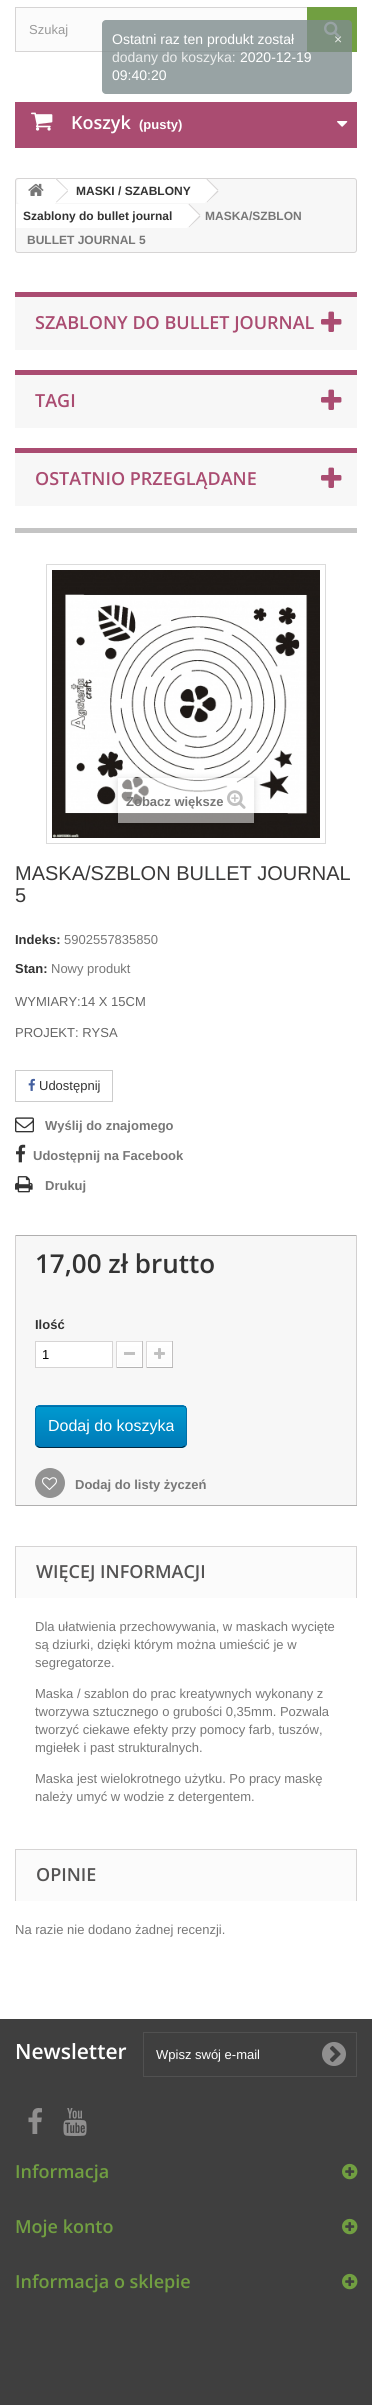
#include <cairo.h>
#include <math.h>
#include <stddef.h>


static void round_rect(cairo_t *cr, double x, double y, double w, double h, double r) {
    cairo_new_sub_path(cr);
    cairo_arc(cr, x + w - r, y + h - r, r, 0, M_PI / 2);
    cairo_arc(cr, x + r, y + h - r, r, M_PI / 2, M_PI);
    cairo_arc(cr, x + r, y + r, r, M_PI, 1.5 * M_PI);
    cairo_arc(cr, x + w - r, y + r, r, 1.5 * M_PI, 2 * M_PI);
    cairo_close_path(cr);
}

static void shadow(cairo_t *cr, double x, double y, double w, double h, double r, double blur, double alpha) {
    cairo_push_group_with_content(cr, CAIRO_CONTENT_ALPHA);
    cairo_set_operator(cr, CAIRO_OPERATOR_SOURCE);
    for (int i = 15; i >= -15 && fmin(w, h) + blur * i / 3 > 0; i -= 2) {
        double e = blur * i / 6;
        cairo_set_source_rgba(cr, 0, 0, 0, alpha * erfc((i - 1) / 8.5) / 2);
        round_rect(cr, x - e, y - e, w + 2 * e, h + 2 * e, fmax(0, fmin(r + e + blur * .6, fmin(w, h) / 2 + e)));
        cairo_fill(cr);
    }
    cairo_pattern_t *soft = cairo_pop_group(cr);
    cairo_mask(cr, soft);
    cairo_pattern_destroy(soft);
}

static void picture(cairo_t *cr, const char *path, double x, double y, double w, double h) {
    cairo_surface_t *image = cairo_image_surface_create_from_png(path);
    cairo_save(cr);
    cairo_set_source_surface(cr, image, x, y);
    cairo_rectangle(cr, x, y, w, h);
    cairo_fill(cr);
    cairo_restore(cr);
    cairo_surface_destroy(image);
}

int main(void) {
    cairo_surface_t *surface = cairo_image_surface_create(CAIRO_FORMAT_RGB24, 372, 2405);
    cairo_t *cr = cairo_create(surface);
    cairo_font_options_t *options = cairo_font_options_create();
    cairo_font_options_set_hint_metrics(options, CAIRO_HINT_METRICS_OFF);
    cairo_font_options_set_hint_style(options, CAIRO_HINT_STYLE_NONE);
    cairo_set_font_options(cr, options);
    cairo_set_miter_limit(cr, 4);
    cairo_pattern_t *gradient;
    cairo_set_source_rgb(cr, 1, 1, 1);
    cairo_paint(cr);
    cairo_set_source_rgb(cr, 0.984, 0.984, 0.984);
    cairo_rectangle(cr, 16, 8, 291, 43);
    cairo_fill(cr);
    cairo_rectangle(cr, 15.5, 7.5, 341, 44);
    cairo_set_source_rgb(cr, 0.839, 0.831, 0.831);
    cairo_set_line_width(cr, 1);
    cairo_stroke(cr);
    cairo_select_font_face(cr, "Liberation Sans", CAIRO_FONT_SLANT_NORMAL, CAIRO_FONT_WEIGHT_NORMAL);
    cairo_set_font_size(cr, 13);
    cairo_set_source_rgb(cr, 0.6, 0.6, 0.6);
    cairo_move_to(cr, 29, 34);
    cairo_show_text(cr, "Szukaj");
    cairo_set_source_rgb(cr, 0.443, 0.624, 0.255);
    cairo_rectangle(cr, 307, 7, 50, 45);
    cairo_fill(cr);
    picture(cr, "img1.png", 324, 21, 16, 17);
    cairo_set_source_rgb(cr, 0.667, 0.298, 0.443);
    cairo_rectangle(cr, 15, 102, 342, 46);
    cairo_fill(cr);
    picture(cr, "img2.png", 31, 112, 22, 19);
    cairo_select_font_face(cr, "Open Sans SemiBold", CAIRO_FONT_SLANT_NORMAL, CAIRO_FONT_WEIGHT_NORMAL);
    cairo_set_font_size(cr, 18);
    cairo_set_source_rgb(cr, 1, 1, 1);
    cairo_move_to(cr, 71, 129);
    cairo_show_text(cr, "Koszyk");
    cairo_select_font_face(cr, "Liberation Sans", CAIRO_FONT_SLANT_NORMAL, CAIRO_FONT_WEIGHT_BOLD);
    cairo_set_font_size(cr, 13);
    cairo_move_to(cr, 139, 129);
    cairo_show_text(cr, "(pusty)");
    picture(cr, "img3.png", 337, 121, 11, 6);
    cairo_set_source_rgb(cr, 0.965, 0.965, 0.965);
    round_rect(cr, 15.5, 178.5, 341, 74, 2.5);
    cairo_fill_preserve(cr);
    cairo_set_source_rgb(cr, 0.839, 0.831, 0.831);
    cairo_stroke(cr);
    cairo_set_source_rgb(cr, 1, 1, 1);
    cairo_new_path(cr);
    cairo_move_to(cr, 20, 179);
    cairo_line_to(cr, 55, 179);
    cairo_line_to(cr, 55, 204);
    cairo_line_to(cr, 20, 204);
    cairo_curve_to(cr, 18.5, 204, 17, 202.5, 17, 201);
    cairo_line_to(cr, 17, 182);
    cairo_curve_to(cr, 17, 180.5, 18.5, 179, 20, 179);
    cairo_close_path(cr);
    cairo_fill(cr);
    picture(cr, "img4.png", 28, 183, 16, 13);
    cairo_rectangle(cr, 55, 179, 150, 24);
    cairo_fill(cr);
    cairo_new_path(cr);
    cairo_move_to(cr, 57.5, 179.5);
    cairo_line_to(cr, 67.5, 189.5);
    cairo_curve_to(cr, 68, 190, 68, 191.5, 67.5, 192);
    cairo_line_to(cr, 57.5, 202);
    cairo_curve_to(cr, 56.5, 203, 55.5, 203, 54.5, 202);
    cairo_line_to(cr, 44.5, 192);
    cairo_curve_to(cr, 44, 191.5, 44, 190, 44.5, 189.5);
    cairo_line_to(cr, 54.5, 179.5);
    cairo_curve_to(cr, 55.5, 178.5, 56.5, 178.5, 57.5, 179.5);
    cairo_close_path(cr);
    cairo_fill(cr);
    cairo_set_source_rgb(cr, 0.839, 0.831, 0.831);
    cairo_new_path(cr);
    cairo_move_to(cr, 56.5, 178.5);
    cairo_line_to(cr, 68, 190);
    cairo_line_to(cr, 67.5, 190.5);
    cairo_line_to(cr, 56, 179.5);
    cairo_close_path(cr);
    cairo_fill(cr);
    cairo_new_path(cr);
    cairo_move_to(cr, 67.5, 190.5);
    cairo_line_to(cr, 68, 191.5);
    cairo_line_to(cr, 56.5, 202.5);
    cairo_line_to(cr, 56, 202);
    cairo_close_path(cr);
    cairo_fill(cr);
    cairo_set_font_size(cr, 12);
    cairo_set_source_rgb(cr, 0.2, 0.2, 0.2);
    cairo_move_to(cr, 76, 195);
    cairo_show_text(cr, "MASKI / SZABLONY");
    cairo_set_source_rgb(cr, 1, 1, 1);
    cairo_new_path(cr);
    cairo_move_to(cr, 208, 179.5);
    cairo_curve_to(cr, 207.5, 179, 206.5, 179, 205.5, 179);
    cairo_line_to(cr, 195, 189.5);
    cairo_curve_to(cr, 194, 191.5, 195.5, 192.5, 196.5, 193.5);
    cairo_line_to(cr, 200, 197);
    cairo_curve_to(cr, 201, 198, 205, 203, 206.5, 202.5);
    cairo_curve_to(cr, 208.5, 202.5, 213, 197, 214.5, 195.5);
    cairo_curve_to(cr, 215, 194.5, 220, 191, 217.5, 189.5);
    cairo_close_path(cr);
    cairo_fill(cr);
    cairo_set_source_rgb(cr, 0.839, 0.831, 0.831);
    cairo_new_path(cr);
    cairo_move_to(cr, 207, 178.5);
    cairo_line_to(cr, 218.5, 190);
    cairo_line_to(cr, 217.5, 190.5);
    cairo_line_to(cr, 206.5, 179.5);
    cairo_close_path(cr);
    cairo_fill(cr);
    cairo_new_path(cr);
    cairo_move_to(cr, 217.5, 190.5);
    cairo_line_to(cr, 218.5, 191.5);
    cairo_line_to(cr, 207, 202.5);
    cairo_line_to(cr, 206.5, 202);
    cairo_close_path(cr);
    cairo_fill(cr);
    cairo_set_source_rgb(cr, 1, 1, 1);
    cairo_rectangle(cr, 16, 204, 171, 24);
    cairo_fill(cr);
    cairo_set_source_rgb(cr, 0.2, 0.2, 0.2);
    cairo_move_to(cr, 23, 220);
    cairo_show_text(cr, "Szablony do bullet journal");
    cairo_set_source_rgb(cr, 1, 1, 1);
    cairo_new_path(cr);
    cairo_move_to(cr, 190, 204.5);
    cairo_line_to(cr, 199.5, 214.5);
    cairo_curve_to(cr, 200.5, 215, 200.5, 216.5, 199.5, 217);
    cairo_line_to(cr, 190, 227);
    cairo_curve_to(cr, 189, 228, 187.5, 228, 187, 227);
    cairo_line_to(cr, 177, 217);
    cairo_curve_to(cr, 176, 216.5, 176, 215, 177, 214.5);
    cairo_line_to(cr, 187, 204.5);
    cairo_curve_to(cr, 187.5, 203.5, 189, 203.5, 190, 204.5);
    cairo_close_path(cr);
    cairo_fill(cr);
    cairo_set_source_rgb(cr, 0.839, 0.831, 0.831);
    cairo_new_path(cr);
    cairo_move_to(cr, 189, 203.5);
    cairo_line_to(cr, 200.5, 215);
    cairo_line_to(cr, 199.5, 215.5);
    cairo_line_to(cr, 188.5, 204.5);
    cairo_close_path(cr);
    cairo_fill(cr);
    cairo_new_path(cr);
    cairo_move_to(cr, 199.5, 215.5);
    cairo_line_to(cr, 200.5, 216.5);
    cairo_line_to(cr, 189, 227.5);
    cairo_line_to(cr, 188.5, 227);
    cairo_close_path(cr);
    cairo_fill(cr);
    cairo_set_source_rgb(cr, 0.467, 0.467, 0.467);
    cairo_move_to(cr, 205, 220);
    cairo_show_text(cr, "MASKA/SZBLON");
    cairo_move_to(cr, 27, 244);
    cairo_show_text(cr, "BULLET JOURNAL 5");
    cairo_set_source_rgb(cr, 0.965, 0.965, 0.965);
    cairo_rectangle(cr, 15, 297, 342, 53);
    cairo_fill(cr);
    cairo_set_source_rgb(cr, 0.667, 0.298, 0.443);
    cairo_rectangle(cr, 15, 292, 342, 5);
    cairo_fill(cr);
    cairo_select_font_face(cr, "Open Sans SemiBold", CAIRO_FONT_SLANT_NORMAL, CAIRO_FONT_WEIGHT_NORMAL);
    cairo_set_font_size(cr, 18);
    cairo_move_to(cr, 35, 329);
    cairo_show_text(cr, "SZABLONY DO BULLET JOURNAL");
    picture(cr, "img5.png", 321, 311, 21, 21);
    cairo_set_source_rgb(cr, 0.965, 0.965, 0.965);
    cairo_rectangle(cr, 15, 375, 342, 53);
    cairo_fill(cr);
    cairo_set_source_rgb(cr, 0.667, 0.298, 0.443);
    cairo_rectangle(cr, 15, 370, 342, 5);
    cairo_fill(cr);
    cairo_move_to(cr, 35, 407);
    cairo_show_text(cr, "TAGI");
    picture(cr, "img5.png", 321, 389, 21, 21);
    cairo_set_source_rgb(cr, 0.965, 0.965, 0.965);
    cairo_rectangle(cr, 15, 453, 342, 53);
    cairo_fill(cr);
    cairo_set_source_rgb(cr, 0.667, 0.298, 0.443);
    cairo_rectangle(cr, 15, 448, 342, 5);
    cairo_fill(cr);
    cairo_move_to(cr, 35, 485);
    cairo_show_text(cr, "OSTATNIO PRZEGLĄDANE");
    picture(cr, "img5.png", 321, 467, 21, 21);
    cairo_set_source_rgb(cr, 0.769, 0.769, 0.769);
    cairo_rectangle(cr, 15, 528, 342, 5);
    cairo_fill(cr);
    cairo_rectangle(cr, 46.5, 564.5, 279, 279);
    cairo_set_source_rgb(cr, 0.859, 0.859, 0.859);
    cairo_stroke(cr);
    picture(cr, "img6.png", 52, 570, 268, 268);
    cairo_save(cr);
    cairo_set_fill_rule(cr, CAIRO_FILL_RULE_EVEN_ODD);
    cairo_new_path(cr);
    cairo_move_to(cr, 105, 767);
    cairo_line_to(cr, 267, 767);
    cairo_line_to(cr, 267, 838);
    cairo_line_to(cr, 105, 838);
    cairo_close_path(cr);
    cairo_move_to(cr, 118, 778);
    cairo_line_to(cr, 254, 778);
    cairo_line_to(cr, 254, 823);
    cairo_line_to(cr, 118, 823);
    cairo_close_path(cr);
    cairo_clip(cr);
    cairo_set_source_rgb(cr, 0, 0, 0);
    shadow(cr, 118, 780, 136, 45, 0, 4, 0.16);
    cairo_restore(cr);
    cairo_set_source_rgba(cr, 1, 1, 1, 0.5);
    cairo_rectangle(cr, 118, 778, 136, 45);
    cairo_fill(cr);
    cairo_select_font_face(cr, "Liberation Sans", CAIRO_FONT_SLANT_NORMAL, CAIRO_FONT_WEIGHT_BOLD);
    cairo_set_font_size(cr, 13);
    cairo_set_source_rgb(cr, 0.467, 0.467, 0.467);
    cairo_move_to(cr, 126, 806);
    cairo_show_text(cr, "Zobacz większe");
    picture(cr, "img7.png", 227, 790, 19, 19);
    cairo_select_font_face(cr, "Liberation Sans", CAIRO_FONT_SLANT_NORMAL, CAIRO_FONT_WEIGHT_NORMAL);
    cairo_set_font_size(cr, 20);
    cairo_set_source_rgb(cr, 0.227, 0.224, 0.224);
    cairo_move_to(cr, 15, 880);
    cairo_show_text(cr, "MASKA/SZBLON BULLET JOURNAL");
    cairo_move_to(cr, 15, 902);
    cairo_show_text(cr, "5");
    cairo_select_font_face(cr, "Liberation Sans", CAIRO_FONT_SLANT_NORMAL, CAIRO_FONT_WEIGHT_BOLD);
    cairo_set_font_size(cr, 13);
    cairo_set_source_rgb(cr, 0.2, 0.2, 0.2);
    cairo_move_to(cr, 15, 944);
    cairo_show_text(cr, "Indeks:");
    cairo_select_font_face(cr, "Liberation Sans", CAIRO_FONT_SLANT_NORMAL, CAIRO_FONT_WEIGHT_NORMAL);
    cairo_set_source_rgb(cr, 0.467, 0.467, 0.467);
    cairo_move_to(cr, 64, 944);
    cairo_show_text(cr, "5902557835850");
    cairo_select_font_face(cr, "Liberation Sans", CAIRO_FONT_SLANT_NORMAL, CAIRO_FONT_WEIGHT_BOLD);
    cairo_set_source_rgb(cr, 0.2, 0.2, 0.2);
    cairo_move_to(cr, 15, 973);
    cairo_show_text(cr, "Stan:");
    cairo_select_font_face(cr, "Liberation Sans", CAIRO_FONT_SLANT_NORMAL, CAIRO_FONT_WEIGHT_NORMAL);
    cairo_set_source_rgb(cr, 0.467, 0.467, 0.467);
    cairo_move_to(cr, 51, 973);
    cairo_show_text(cr, "Nowy produkt");
    cairo_set_source_rgb(cr, 0.4, 0.4, 0.4);
    cairo_move_to(cr, 15, 1006);
    cairo_show_text(cr, "WYMIARY:14 X 15CM");
    cairo_move_to(cr, 15, 1037);
    cairo_show_text(cr, "PROJEKT: RYSA");
    cairo_rectangle(cr, 15.5, 1070.5, 97, 31);
    cairo_set_source_rgb(cr, 0.8, 0.8, 0.8);
    cairo_stroke(cr);
    picture(cr, "img8.png", 28, 1078, 7, 13);
    cairo_set_source_rgb(cr, 0.2, 0.2, 0.2);
    cairo_move_to(cr, 39, 1090);
    cairo_show_text(cr, "Udostępnij");
    picture(cr, "img9.png", 15, 1117, 19, 16);
    cairo_select_font_face(cr, "Liberation Sans", CAIRO_FONT_SLANT_NORMAL, CAIRO_FONT_WEIGHT_BOLD);
    cairo_set_source_rgb(cr, 0.467, 0.467, 0.467);
    cairo_move_to(cr, 45, 1130);
    cairo_show_text(cr, "Wyślij do znajomego");
    picture(cr, "img10.png", 16, 1144, 10, 19);
    cairo_move_to(cr, 33, 1160);
    cairo_show_text(cr, "Udostępnij na Facebook");
    picture(cr, "img11.png", 15, 1176, 18, 17);
    cairo_move_to(cr, 45, 1190);
    cairo_show_text(cr, "Drukuj");
    cairo_set_source_rgb(cr, 0.965, 0.965, 0.965);
    cairo_rectangle(cr, 16, 1236, 340, 269);
    cairo_fill(cr);
    cairo_set_source_rgb(cr, 0.69, 0.686, 0.686);
    cairo_rectangle(cr, 15, 1235, 342, 1);
    cairo_fill(cr);
    cairo_set_source_rgb(cr, 0.824, 0.816, 0.816);
    cairo_rectangle(cr, 356, 1235, 1, 271);
    cairo_fill(cr);
    cairo_set_source_rgb(cr, 0.69, 0.686, 0.686);
    cairo_rectangle(cr, 15, 1505, 342, 1);
    cairo_fill(cr);
    cairo_set_source_rgb(cr, 0.824, 0.816, 0.816);
    cairo_rectangle(cr, 15, 1235, 1, 271);
    cairo_fill(cr);
    cairo_select_font_face(cr, "Open Sans SemiBold", CAIRO_FONT_SLANT_NORMAL, CAIRO_FONT_WEIGHT_NORMAL);
    cairo_set_font_size(cr, 26);
    cairo_set_source_rgb(cr, 0.2, 0.2, 0.2);
    cairo_move_to(cr, 35, 1273);
    cairo_show_text(cr, "17,00 zł brutto");
    cairo_select_font_face(cr, "Liberation Sans", CAIRO_FONT_SLANT_NORMAL, CAIRO_FONT_WEIGHT_BOLD);
    cairo_set_font_size(cr, 13);
    cairo_move_to(cr, 35, 1329);
    cairo_show_text(cr, "Ilość");
    cairo_set_source_rgb(cr, 1, 1, 1);
    cairo_rectangle(cr, 35.5, 1341.5, 77, 26);
    cairo_fill_preserve(cr);
    cairo_set_source_rgb(cr, 0.839, 0.831, 0.831);
    cairo_stroke(cr);
    cairo_select_font_face(cr, "Liberation Sans", CAIRO_FONT_SLANT_NORMAL, CAIRO_FONT_WEIGHT_NORMAL);
    cairo_set_source_rgb(cr, 0, 0, 0);
    cairo_move_to(cr, 42, 1359);
    cairo_show_text(cr, "1");
    cairo_set_source_rgb(cr, 0.871, 0.863, 0.863);
    cairo_rectangle(cr, 116, 1341, 27, 1);
    cairo_fill(cr);
    cairo_set_source_rgb(cr, 0.757, 0.749, 0.749);
    cairo_rectangle(cr, 142, 1341, 1, 27);
    cairo_fill(cr);
    cairo_set_source_rgb(cr, 0.71, 0.706, 0.706);
    cairo_rectangle(cr, 116, 1367, 27, 1);
    cairo_fill(cr);
    cairo_set_source_rgb(cr, 0.855, 0.847, 0.847);
    cairo_rectangle(cr, 116, 1341, 1, 27);
    cairo_fill(cr);
    gradient = cairo_pattern_create_linear(130, 1343, 130, 1366);
    cairo_pattern_add_color_stop_rgba(gradient, 0, 1, 1, 1, 1);
    cairo_pattern_add_color_stop_rgba(gradient, 1, 0.984, 0.984, 0.984, 1);
    cairo_set_source(cr, gradient);
    cairo_pattern_destroy(gradient);
    cairo_rectangle(cr, 118, 1343, 23, 23);
    cairo_fill(cr);
    cairo_rectangle(cr, 117.5, 1342.5, 24, 24);
    cairo_set_source_rgb(cr, 1, 1, 1);
    cairo_stroke(cr);
    cairo_set_source_rgb(cr, 0.753, 0.753, 0.753);
    cairo_rectangle(cr, 124, 1352, 11, 3);
    cairo_fill(cr);
    cairo_set_source_rgb(cr, 0.871, 0.863, 0.863);
    cairo_rectangle(cr, 146, 1341, 27, 1);
    cairo_fill(cr);
    cairo_set_source_rgb(cr, 0.757, 0.749, 0.749);
    cairo_rectangle(cr, 172, 1341, 1, 27);
    cairo_fill(cr);
    cairo_set_source_rgb(cr, 0.71, 0.706, 0.706);
    cairo_rectangle(cr, 146, 1367, 27, 1);
    cairo_fill(cr);
    cairo_set_source_rgb(cr, 0.855, 0.847, 0.847);
    cairo_rectangle(cr, 146, 1341, 1, 27);
    cairo_fill(cr);
    gradient = cairo_pattern_create_linear(160, 1343, 160, 1366);
    cairo_pattern_add_color_stop_rgba(gradient, 0, 1, 1, 1, 1);
    cairo_pattern_add_color_stop_rgba(gradient, 1, 0.984, 0.984, 0.984, 1);
    cairo_set_source(cr, gradient);
    cairo_pattern_destroy(gradient);
    cairo_rectangle(cr, 148, 1343, 23, 23);
    cairo_fill(cr);
    cairo_rectangle(cr, 147.5, 1342.5, 24, 24);
    cairo_set_source_rgb(cr, 1, 1, 1);
    cairo_stroke(cr);
    picture(cr, "img12.png", 154, 1348, 11, 11);
    cairo_save(cr);
    round_rect(cr, 35, 1405, 152, 43, 5);
    cairo_clip(cr);
    gradient = cairo_pattern_create_linear(111, 1365, 111, 1406);
    cairo_pattern_add_color_stop_rgba(gradient, 0, 0, 0.604, 0.816, 1);
    cairo_pattern_add_color_stop_rgba(gradient, 1, 0, 0.478, 0.718, 1);
    cairo_set_source(cr, gradient);
    cairo_pattern_destroy(gradient);
    cairo_rectangle(cr, 35, 1405, 152, 1);
    cairo_fill(cr);
    gradient = cairo_pattern_create_linear(111, 1406, 111, 1447);
    cairo_pattern_add_color_stop_rgba(gradient, 0, 0, 0.604, 0.816, 1);
    cairo_pattern_add_color_stop_rgba(gradient, 1, 0, 0.478, 0.718, 1);
    cairo_set_source(cr, gradient);
    cairo_pattern_destroy(gradient);
    cairo_rectangle(cr, 35, 1407, 152, 40);
    cairo_fill(cr);
    gradient = cairo_pattern_create_linear(111, 1447, 111, 1488);
    cairo_pattern_add_color_stop_rgba(gradient, 0, 0, 0.604, 0.816, 1);
    cairo_pattern_add_color_stop_rgba(gradient, 1, 0, 0.478, 0.718, 1);
    cairo_set_source(cr, gradient);
    cairo_pattern_destroy(gradient);
    cairo_rectangle(cr, 35, 1447, 152, 1);
    cairo_fill(cr);
    cairo_restore(cr);
    cairo_new_path(cr);
    cairo_move_to(cr, 37, 1407);
    cairo_line_to(cr, 40, 1405.5);
    cairo_line_to(cr, 182.5, 1405.5);
    cairo_line_to(cr, 185, 1407);
    cairo_set_source_rgb(cr, 0, 0.475, 0.714);
    cairo_stroke(cr);
    cairo_new_path(cr);
    cairo_move_to(cr, 185, 1407);
    cairo_curve_to(cr, 186, 1407.5, 186.5, 1409, 186.5, 1410);
    cairo_line_to(cr, 186.5, 1443);
    cairo_curve_to(cr, 186.5, 1444, 186, 1445.5, 185, 1446);
    cairo_set_source_rgb(cr, 0, 0.435, 0.659);
    cairo_stroke(cr);
    cairo_new_path(cr);
    cairo_move_to(cr, 185, 1446);
    cairo_line_to(cr, 182, 1447.5);
    cairo_line_to(cr, 39.5, 1447.5);
    cairo_line_to(cr, 37, 1446);
    cairo_set_source_rgb(cr, 0.004, 0.153, 0.251);
    cairo_stroke(cr);
    cairo_new_path(cr);
    cairo_move_to(cr, 37, 1446);
    cairo_curve_to(cr, 36, 1445.5, 35.5, 1444, 35.5, 1443);
    cairo_line_to(cr, 35.5, 1410);
    cairo_curve_to(cr, 35.5, 1409, 36, 1407.5, 37, 1407);
    cairo_set_source_rgb(cr, 0, 0.435, 0.659);
    cairo_stroke(cr);
    cairo_rectangle(cr, 36, 1406, 150, 1);
    cairo_fill(cr);
    cairo_set_font_size(cr, 16);
    cairo_set_source_rgb(cr, 1, 1, 1);
    cairo_move_to(cr, 48, 1431);
    cairo_show_text(cr, "Dodaj do koszyka");
    cairo_set_source_rgb(cr, 0.573, 0.573, 0.573);
    cairo_new_path(cr);
    cairo_arc(cr, 50, 1483, 15, 0, 2 * M_PI);
    cairo_fill(cr);
    picture(cr, "img13.png", 42, 1477, 15, 13);
    cairo_select_font_face(cr, "Liberation Sans", CAIRO_FONT_SLANT_NORMAL, CAIRO_FONT_WEIGHT_BOLD);
    cairo_set_font_size(cr, 13);
    cairo_set_source_rgb(cr, 0.467, 0.467, 0.467);
    cairo_move_to(cr, 75, 1489);
    cairo_show_text(cr, "Dodaj do listy życzeń");
    cairo_set_source_rgb(cr, 0.984, 0.984, 0.984);
    cairo_rectangle(cr, 16, 1547, 340, 51);
    cairo_fill(cr);
    cairo_set_source_rgb(cr, 0.839, 0.831, 0.831);
    cairo_rectangle(cr, 15, 1546, 342, 1);
    cairo_fill(cr);
    cairo_rectangle(cr, 356, 1546, 1, 52);
    cairo_fill(cr);
    cairo_rectangle(cr, 15, 1546, 1, 52);
    cairo_fill(cr);
    cairo_select_font_face(cr, "Open Sans SemiBold", CAIRO_FONT_SLANT_NORMAL, CAIRO_FONT_WEIGHT_NORMAL);
    cairo_set_font_size(cr, 18);
    cairo_set_source_rgb(cr, 0.333, 0.329, 0.329);
    cairo_move_to(cr, 36, 1578);
    cairo_show_text(cr, "WIĘCEJ INFORMACJI");
    cairo_select_font_face(cr, "Liberation Sans", CAIRO_FONT_SLANT_NORMAL, CAIRO_FONT_WEIGHT_NORMAL);
    cairo_set_font_size(cr, 13);
    cairo_set_source_rgb(cr, 0.467, 0.467, 0.467);
    cairo_move_to(cr, 35, 1631);
    cairo_show_text(cr, "Dla ułatwienia przechowywania, w maskach wycięte");
    cairo_move_to(cr, 35, 1649);
    cairo_show_text(cr, "są dziurki, dzięki którym można umieścić je w");
    cairo_move_to(cr, 35, 1667);
    cairo_show_text(cr, "segregatorze.");
    cairo_move_to(cr, 35, 1698);
    cairo_show_text(cr, "Maska / szablon do prac kreatywnych wykonany z");
    cairo_move_to(cr, 35, 1716);
    cairo_show_text(cr, "tworzywa sztucznego o grubości 0,35mm. Pozwala");
    cairo_move_to(cr, 35, 1734);
    cairo_show_text(cr, "tworzyć ciekawe efekty przy pomocy farb, tuszów,");
    cairo_move_to(cr, 35, 1752);
    cairo_show_text(cr, "mgiełek i past strukturalnych.");
    cairo_move_to(cr, 35, 1783);
    cairo_show_text(cr, "Maska jest wielokrotnego użytku. Po pracy maskę");
    cairo_move_to(cr, 35, 1801);
    cairo_show_text(cr, "należy umyć w wodzie z detergentem.");
    cairo_set_source_rgb(cr, 0.984, 0.984, 0.984);
    cairo_rectangle(cr, 16, 1850, 340, 51);
    cairo_fill(cr);
    cairo_set_source_rgb(cr, 0.839, 0.831, 0.831);
    cairo_rectangle(cr, 15, 1849, 342, 1);
    cairo_fill(cr);
    cairo_rectangle(cr, 356, 1849, 1, 52);
    cairo_fill(cr);
    cairo_rectangle(cr, 15, 1849, 1, 52);
    cairo_fill(cr);
    cairo_select_font_face(cr, "Open Sans SemiBold", CAIRO_FONT_SLANT_NORMAL, CAIRO_FONT_WEIGHT_NORMAL);
    cairo_set_font_size(cr, 18);
    cairo_set_source_rgb(cr, 0.333, 0.329, 0.329);
    cairo_move_to(cr, 36, 1881);
    cairo_show_text(cr, "OPINIE");
    cairo_select_font_face(cr, "Liberation Sans", CAIRO_FONT_SLANT_NORMAL, CAIRO_FONT_WEIGHT_NORMAL);
    cairo_set_font_size(cr, 13);
    cairo_set_source_rgb(cr, 0.467, 0.467, 0.467);
    cairo_move_to(cr, 15, 1934);
    cairo_show_text(cr, "Na razie nie dodano żadnej recenzji.");
    cairo_set_source_rgb(cr, 0.247, 0.247, 0.247);
    cairo_rectangle(cr, 0, 2019, 372, 386);
    cairo_fill(cr);
    cairo_select_font_face(cr, "Open Sans SemiBold", CAIRO_FONT_SLANT_NORMAL, CAIRO_FONT_WEIGHT_NORMAL);
    cairo_set_font_size(cr, 21);
    cairo_set_source_rgb(cr, 1, 1, 1);
    cairo_move_to(cr, 15, 2059);
    cairo_show_text(cr, "Newsletter");
    cairo_rectangle(cr, 143.5, 2032.5, 213, 44);
    cairo_set_source_rgb(cr, 0.318, 0.318, 0.318);
    cairo_stroke(cr);
    cairo_select_font_face(cr, "Liberation Sans", CAIRO_FONT_SLANT_NORMAL, CAIRO_FONT_WEIGHT_NORMAL);
    cairo_set_font_size(cr, 13);
    cairo_set_source_rgb(cr, 1, 1, 1);
    cairo_move_to(cr, 156, 2059);
    cairo_show_text(cr, "Wpisz swój e-mail");
    picture(cr, "img14.png", 322, 2042, 24, 24);
    picture(cr, "img15.png", 28, 2108, 14, 26);
    picture(cr, "img16.png", 63, 2108, 24, 28);
    cairo_select_font_face(cr, "Open Sans SemiBold", CAIRO_FONT_SLANT_NORMAL, CAIRO_FONT_WEIGHT_NORMAL);
    cairo_set_font_size(cr, 18);
    cairo_set_source_rgb(cr, 0.443, 0.624, 0.255);
    cairo_move_to(cr, 15, 2178);
    cairo_show_text(cr, "Informacja");
    picture(cr, "img17.png", 342, 2163, 16, 17);
    cairo_move_to(cr, 15, 2233);
    cairo_show_text(cr, "Moje konto");
    picture(cr, "img17.png", 342, 2218, 16, 17);
    cairo_move_to(cr, 15, 2288);
    cairo_show_text(cr, "Informacja o sklepie");
    picture(cr, "img17.png", 342, 2273, 16, 17);
    cairo_set_source_rgba(cr, 0.498, 0.549, 0.553, 0.8);
    round_rect(cr, 102, 20, 250, 74, 4);
    cairo_fill(cr);
    cairo_select_font_face(cr, "Liberation Sans", CAIRO_FONT_SLANT_NORMAL, CAIRO_FONT_WEIGHT_NORMAL);
    cairo_set_font_size(cr, 14);
    cairo_set_source_rgb(cr, 1, 1, 1);
    cairo_move_to(cr, 112, 44);
    cairo_show_text(cr, "Ostatni raz ten produkt został");
    cairo_set_source_rgb(cr, 0.918, 0.929, 0.929);
    cairo_move_to(cr, 112, 62);
    cairo_show_text(cr, "dodany do koszyka:");
    cairo_set_source_rgb(cr, 1, 1, 1);
    cairo_move_to(cr, 240, 62);
    cairo_show_text(cr, "2020-12-19");
    cairo_move_to(cr, 112, 80);
    cairo_show_text(cr, "09:40:20");
    cairo_set_source_rgb(cr, 0.898, 0.914, 0.898);
    cairo_move_to(cr, 334, 44);
    cairo_show_text(cr, "×");
    cairo_surface_write_to_png(surface, "page.png");
    cairo_font_options_destroy(options);
    cairo_destroy(cr);
    cairo_surface_destroy(surface);
    return 0;
}
